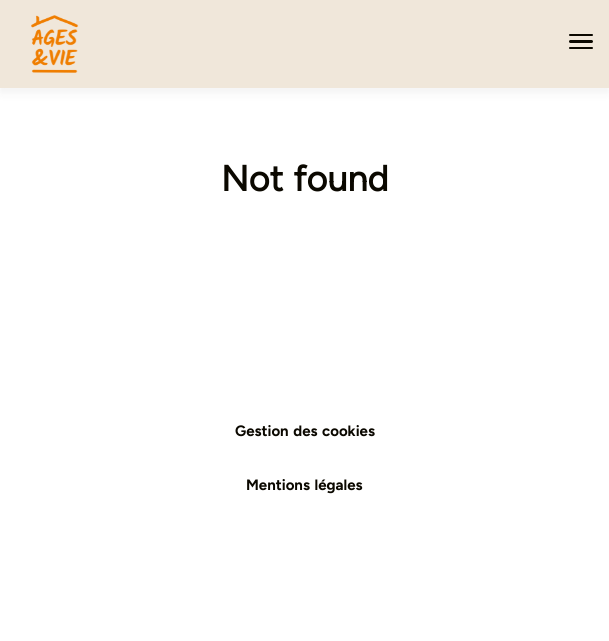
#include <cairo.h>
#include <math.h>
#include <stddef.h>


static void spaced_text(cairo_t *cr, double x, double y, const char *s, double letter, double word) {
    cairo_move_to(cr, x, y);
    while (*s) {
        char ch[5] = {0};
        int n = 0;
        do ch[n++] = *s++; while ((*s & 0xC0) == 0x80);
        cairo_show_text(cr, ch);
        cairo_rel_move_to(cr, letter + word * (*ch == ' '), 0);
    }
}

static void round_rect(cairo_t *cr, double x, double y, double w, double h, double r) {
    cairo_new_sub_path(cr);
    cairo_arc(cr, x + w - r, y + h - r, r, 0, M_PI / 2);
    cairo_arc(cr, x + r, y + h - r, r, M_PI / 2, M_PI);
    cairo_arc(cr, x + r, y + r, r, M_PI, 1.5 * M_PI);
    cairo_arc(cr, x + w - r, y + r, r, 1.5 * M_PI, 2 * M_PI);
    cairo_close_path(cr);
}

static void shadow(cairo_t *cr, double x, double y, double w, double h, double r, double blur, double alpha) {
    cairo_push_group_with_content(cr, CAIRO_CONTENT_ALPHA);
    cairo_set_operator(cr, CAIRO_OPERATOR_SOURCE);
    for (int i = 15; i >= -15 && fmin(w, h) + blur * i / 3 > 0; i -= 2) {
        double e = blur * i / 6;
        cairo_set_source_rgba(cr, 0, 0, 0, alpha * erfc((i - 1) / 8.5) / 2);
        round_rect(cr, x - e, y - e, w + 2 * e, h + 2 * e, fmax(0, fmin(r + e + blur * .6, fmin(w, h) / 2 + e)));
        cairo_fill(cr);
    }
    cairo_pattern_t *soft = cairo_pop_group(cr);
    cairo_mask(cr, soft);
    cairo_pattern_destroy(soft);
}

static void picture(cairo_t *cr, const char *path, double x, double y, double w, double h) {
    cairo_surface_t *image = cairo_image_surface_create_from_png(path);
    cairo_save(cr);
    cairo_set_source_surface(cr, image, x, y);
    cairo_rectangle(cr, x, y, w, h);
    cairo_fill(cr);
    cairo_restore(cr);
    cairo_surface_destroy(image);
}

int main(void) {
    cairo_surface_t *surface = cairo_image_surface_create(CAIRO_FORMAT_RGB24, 609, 641);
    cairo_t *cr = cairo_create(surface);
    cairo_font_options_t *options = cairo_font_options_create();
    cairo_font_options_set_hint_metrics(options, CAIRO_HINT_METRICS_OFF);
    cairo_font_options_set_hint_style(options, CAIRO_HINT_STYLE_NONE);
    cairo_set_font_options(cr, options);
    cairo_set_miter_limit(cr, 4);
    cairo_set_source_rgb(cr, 1, 1, 1);
    cairo_paint(cr);
    cairo_set_source_rgb(cr, 0, 0, 0);
    shadow(cr, 0, 5, 609, 88, 0, 5, 0.05);
    cairo_set_source_rgb(cr, 0.941, 0.906, 0.855);
    cairo_rectangle(cr, 0, 0, 609, 88);
    cairo_fill(cr);
    picture(cr, "img1.png", 31, 15, 48, 58);
    cairo_set_source_rgb(cr, 0.043, 0.035, 0);
    round_rect(cr, 569, 40, 24, 3, 1.5);
    cairo_fill(cr);
    round_rect(cr, 569, 34, 24, 2, 1);
    cairo_fill(cr);
    round_rect(cr, 569, 47, 24, 2, 1);
    cairo_fill(cr);
    cairo_select_font_face(cr, "Figtree", CAIRO_FONT_SLANT_NORMAL, CAIRO_FONT_WEIGHT_BOLD);
    cairo_set_font_size(cr, 36);
    spaced_text(cr, 221, 191, "Not found", 0, 1);
    cairo_select_font_face(cr, "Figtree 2", CAIRO_FONT_SLANT_NORMAL, CAIRO_FONT_WEIGHT_BOLD);
    cairo_set_font_size(cr, 15);
    spaced_text(cr, 235, 436, "Gestion des cookies", 0, 1);
    spaced_text(cr, 246, 490, "Mentions légales", 0, 1);
    cairo_surface_write_to_png(surface, "page.png");
    cairo_font_options_destroy(options);
    cairo_destroy(cr);
    cairo_surface_destroy(surface);
    return 0;
}
